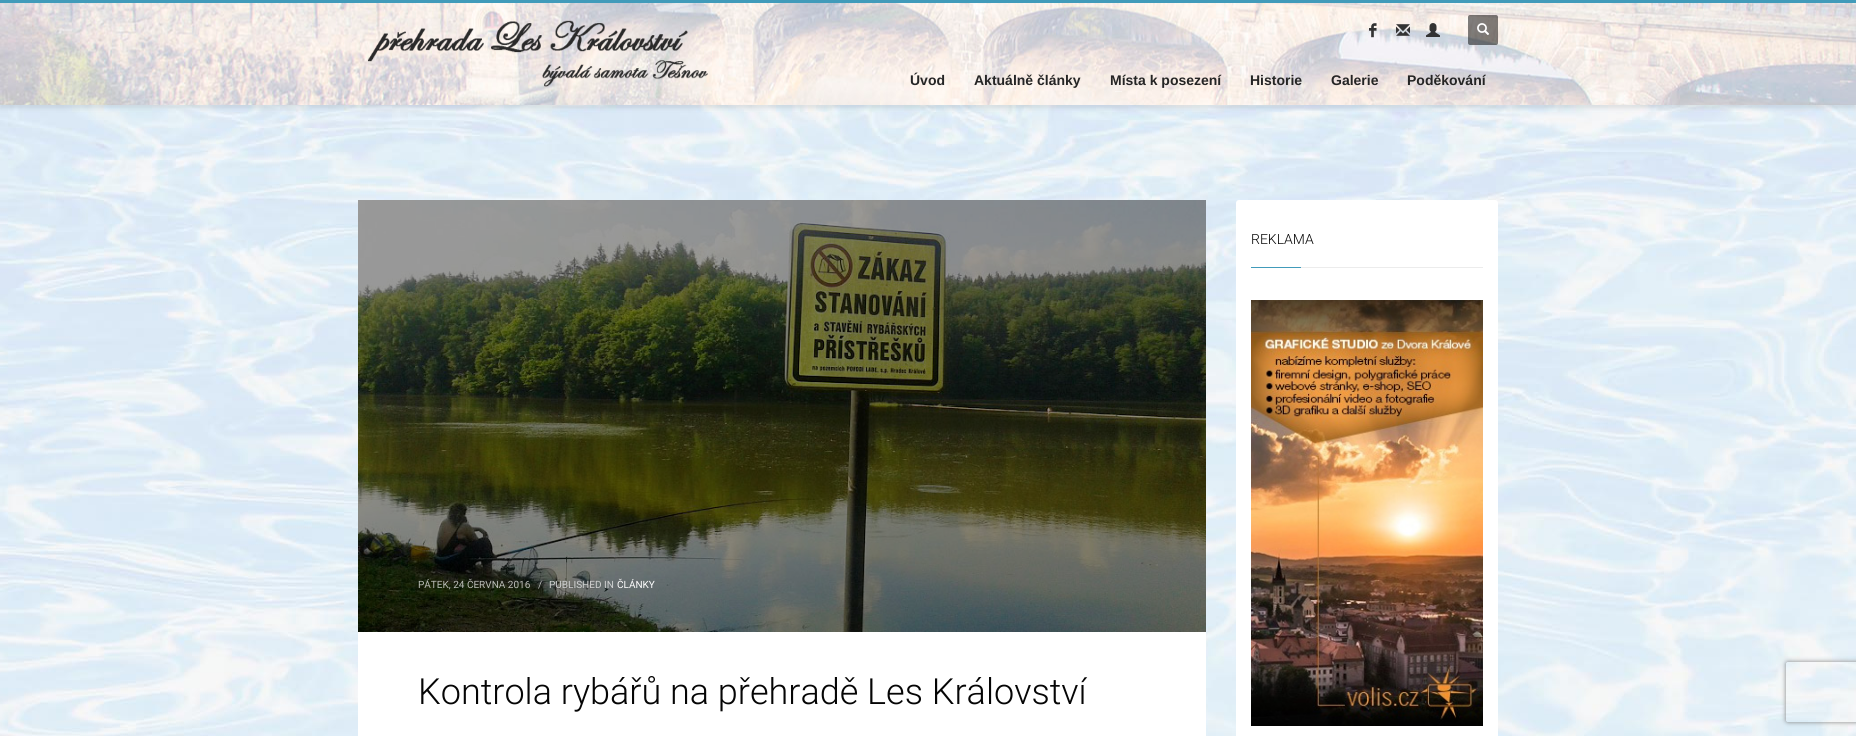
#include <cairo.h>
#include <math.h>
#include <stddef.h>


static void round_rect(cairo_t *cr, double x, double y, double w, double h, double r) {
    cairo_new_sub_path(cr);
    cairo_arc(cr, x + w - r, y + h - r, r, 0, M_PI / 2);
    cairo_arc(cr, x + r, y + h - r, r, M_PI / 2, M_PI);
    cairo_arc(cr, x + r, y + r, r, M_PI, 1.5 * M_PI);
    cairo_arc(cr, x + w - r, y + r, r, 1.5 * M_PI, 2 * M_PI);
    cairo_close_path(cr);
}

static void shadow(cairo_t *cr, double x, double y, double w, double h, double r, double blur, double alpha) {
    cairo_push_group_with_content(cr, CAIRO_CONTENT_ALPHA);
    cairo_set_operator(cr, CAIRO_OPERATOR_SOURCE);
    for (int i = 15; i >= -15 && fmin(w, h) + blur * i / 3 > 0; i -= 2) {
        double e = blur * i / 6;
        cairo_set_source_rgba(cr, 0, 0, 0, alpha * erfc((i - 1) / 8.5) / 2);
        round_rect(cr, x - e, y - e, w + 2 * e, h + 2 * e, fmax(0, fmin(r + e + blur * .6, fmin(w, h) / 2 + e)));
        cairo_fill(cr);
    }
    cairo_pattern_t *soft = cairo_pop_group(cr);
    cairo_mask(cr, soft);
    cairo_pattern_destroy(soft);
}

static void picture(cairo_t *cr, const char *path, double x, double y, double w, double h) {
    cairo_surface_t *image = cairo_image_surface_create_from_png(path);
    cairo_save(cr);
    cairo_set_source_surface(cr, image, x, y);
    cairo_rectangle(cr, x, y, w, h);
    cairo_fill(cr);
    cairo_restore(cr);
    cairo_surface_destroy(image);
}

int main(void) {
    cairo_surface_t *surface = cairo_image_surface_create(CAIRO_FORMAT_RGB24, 1856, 736);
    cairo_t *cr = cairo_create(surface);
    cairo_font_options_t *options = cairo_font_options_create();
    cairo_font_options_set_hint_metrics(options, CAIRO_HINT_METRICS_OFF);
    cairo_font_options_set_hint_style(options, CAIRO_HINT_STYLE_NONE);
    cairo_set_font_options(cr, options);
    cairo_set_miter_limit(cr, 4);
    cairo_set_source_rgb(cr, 1, 1, 1);
    cairo_paint(cr);
    picture(cr, "img1.png", 0, 105, 1856, 631);
    cairo_set_source_rgb(cr, 0, 0, 0);
    shadow(cr, 0, 3, 1856, 105, 0, 2.5, 0.1);
    picture(cr, "img2.png", 0, 3, 1856, 102);
    cairo_set_source_rgb(cr, 0.255, 0.608, 0.729);
    cairo_rectangle(cr, 0, 0, 1856, 3);
    cairo_fill(cr);
    picture(cr, "img3.png", 368, 20, 340, 67);
    picture(cr, "img4.png", 1369, 23, 8, 15);
    picture(cr, "img5.png", 1396, 24, 14, 12);
    picture(cr, "img6.png", 1426, 23, 14, 14);
    cairo_set_source_rgba(cr, 0, 0, 0, 0.5);
    round_rect(cr, 1468, 15, 30, 30, 2);
    cairo_fill(cr);
    picture(cr, "img7.png", 1477, 23, 12, 12);
    cairo_select_font_face(cr, "Liberation Sans", CAIRO_FONT_SLANT_NORMAL, CAIRO_FONT_WEIGHT_BOLD);
    cairo_set_font_size(cr, 14);
    cairo_set_source_rgb(cr, 0.145, 0.145, 0.145);
    cairo_move_to(cr, 910, 85);
    cairo_show_text(cr, "Úvod");
    cairo_move_to(cr, 974, 85);
    cairo_show_text(cr, "Aktuálně články");
    cairo_move_to(cr, 1110, 85);
    cairo_show_text(cr, "Místa k posezení");
    cairo_set_source_rgba(cr, 1, 1, 1, 0.4);
    cairo_rectangle(cr, 1115, 91, 7, 1);
    cairo_fill(cr);
    cairo_set_source_rgb(cr, 0.145, 0.145, 0.145);
    cairo_move_to(cr, 1250, 85);
    cairo_show_text(cr, "Historie");
    cairo_set_source_rgba(cr, 1, 1, 1, 0.4);
    cairo_rectangle(cr, 1255, 91, 7, 1);
    cairo_fill(cr);
    cairo_set_source_rgb(cr, 0.145, 0.145, 0.145);
    cairo_move_to(cr, 1331, 85);
    cairo_show_text(cr, "Galerie");
    cairo_move_to(cr, 1407, 85);
    cairo_show_text(cr, "Poděkování");
    cairo_set_source_rgb(cr, 1, 1, 1);
    round_rect(cr, 1236, 200, 262, 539, 3);
    cairo_fill(cr);
    cairo_select_font_face(cr, "Roboto Light", CAIRO_FONT_SLANT_NORMAL, CAIRO_FONT_WEIGHT_NORMAL);
    cairo_set_source_rgb(cr, 0.02, 0.02, 0.02);
    cairo_move_to(cr, 1251, 244);
    cairo_show_text(cr, "REKLAMA");
    cairo_set_source_rgb(cr, 0.255, 0.608, 0.729);
    cairo_rectangle(cr, 1251, 267, 50, 1);
    cairo_fill(cr);
    cairo_set_source_rgb(cr, 0.925, 0.925, 0.925);
    cairo_rectangle(cr, 1301, 267, 182, 1);
    cairo_fill(cr);
    picture(cr, "img8.png", 1251, 300, 232, 426);
    cairo_set_source_rgb(cr, 1, 1, 1);
    cairo_rectangle(cr, 358, 632, 848, 104);
    cairo_fill(cr);
    picture(cr, "img9.png", 358, 200, 848, 432);
    cairo_select_font_face(cr, "Roboto", CAIRO_FONT_SLANT_NORMAL, CAIRO_FONT_WEIGHT_NORMAL);
    cairo_set_font_size(cr, 10);
    cairo_set_source_rgb(cr, 0.729, 0.737, 0.718);
    cairo_move_to(cr, 418, 588);
    cairo_show_text(cr, "PÁTEK, 24 ČERVNA 2016");
    cairo_set_source_rgb(cr, 0.745, 0.753, 0.745);
    cairo_move_to(cr, 538, 588);
    cairo_show_text(cr, "/");
    cairo_set_source_rgb(cr, 0.816, 0.82, 0.82);
    cairo_move_to(cr, 549, 588);
    cairo_show_text(cr, "PUBLISHED IN");
    cairo_set_source_rgb(cr, 1, 1, 1);
    cairo_move_to(cr, 617, 588);
    cairo_show_text(cr, "ČLÁNKY");
    cairo_select_font_face(cr, "Roboto Light", CAIRO_FONT_SLANT_NORMAL, CAIRO_FONT_WEIGHT_NORMAL);
    cairo_set_font_size(cr, 36);
    cairo_set_source_rgb(cr, 0.02, 0.02, 0.02);
    cairo_move_to(cr, 418, 704);
    cairo_show_text(cr, "Kontrola rybářů na přehradě Les Království");
    cairo_save(cr);
    cairo_set_fill_rule(cr, CAIRO_FILL_RULE_EVEN_ODD);
    cairo_new_path(cr);
    cairo_move_to(cr, 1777, 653);
    cairo_line_to(cr, 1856, 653);
    cairo_line_to(cr, 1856, 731);
    cairo_line_to(cr, 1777, 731);
    cairo_close_path(cr);
    cairo_move_to(cr, 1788, 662);
    cairo_line_to(cr, 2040, 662);
    cairo_curve_to(cr, 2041, 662, 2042, 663, 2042, 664);
    cairo_line_to(cr, 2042, 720);
    cairo_curve_to(cr, 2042, 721, 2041, 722, 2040, 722);
    cairo_line_to(cr, 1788, 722);
    cairo_curve_to(cr, 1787, 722, 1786, 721, 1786, 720);
    cairo_line_to(cr, 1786, 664);
    cairo_curve_to(cr, 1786, 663, 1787, 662, 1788, 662);
    cairo_close_path(cr);
    cairo_clip(cr);
    cairo_set_source_rgb(cr, 0.502, 0.502, 0.502);
    shadow(cr, 1786, 662, 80, 60, 2, 2.5, 1);
    cairo_restore(cr);
    cairo_surface_write_to_png(surface, "page.png");
    cairo_font_options_destroy(options);
    cairo_destroy(cr);
    cairo_surface_destroy(surface);
    return 0;
}
